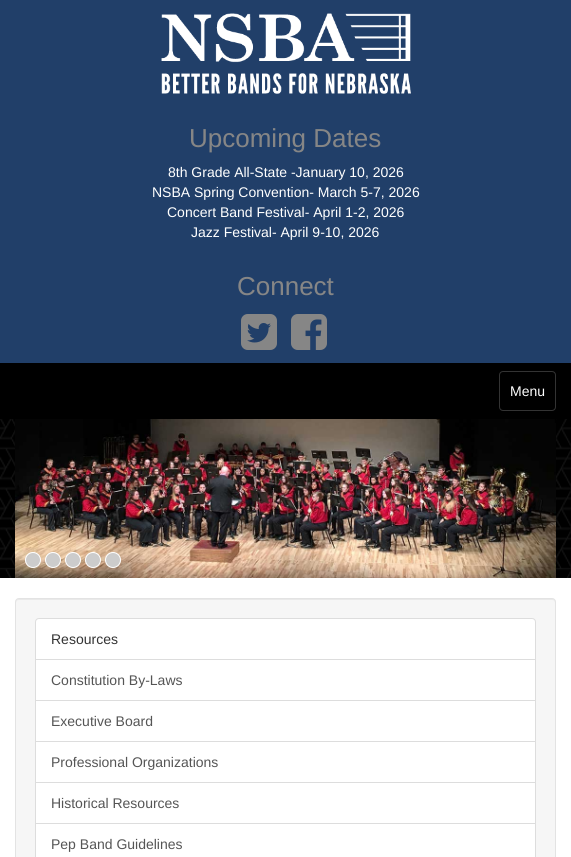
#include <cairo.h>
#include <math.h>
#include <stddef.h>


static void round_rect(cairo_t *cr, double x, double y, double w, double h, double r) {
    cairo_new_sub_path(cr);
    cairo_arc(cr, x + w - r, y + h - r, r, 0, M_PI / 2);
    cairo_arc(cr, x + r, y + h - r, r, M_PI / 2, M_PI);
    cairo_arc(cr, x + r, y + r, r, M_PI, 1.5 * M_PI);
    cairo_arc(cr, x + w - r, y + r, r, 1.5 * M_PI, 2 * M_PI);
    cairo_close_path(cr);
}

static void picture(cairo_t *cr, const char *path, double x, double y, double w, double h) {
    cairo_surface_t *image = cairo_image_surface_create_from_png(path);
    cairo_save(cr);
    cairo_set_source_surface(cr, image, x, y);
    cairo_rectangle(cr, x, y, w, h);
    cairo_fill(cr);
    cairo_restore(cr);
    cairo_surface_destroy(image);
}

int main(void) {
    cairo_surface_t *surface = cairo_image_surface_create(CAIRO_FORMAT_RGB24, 571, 857);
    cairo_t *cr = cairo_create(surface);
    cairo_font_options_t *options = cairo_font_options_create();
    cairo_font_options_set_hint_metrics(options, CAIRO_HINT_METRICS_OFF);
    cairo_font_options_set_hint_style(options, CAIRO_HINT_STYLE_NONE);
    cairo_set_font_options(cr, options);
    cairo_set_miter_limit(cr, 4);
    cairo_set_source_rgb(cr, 1, 1, 1);
    cairo_paint(cr);
    cairo_set_source_rgb(cr, 0.129, 0.247, 0.412);
    cairo_rectangle(cr, 0, 0, 571, 363);
    cairo_fill(cr);
    picture(cr, "img1.png", 161, 13, 250, 81);
    cairo_select_font_face(cr, "Liberation Sans", CAIRO_FONT_SLANT_NORMAL, CAIRO_FONT_WEIGHT_NORMAL);
    cairo_set_font_size(cr, 26);
    cairo_set_source_rgb(cr, 0.525, 0.525, 0.525);
    cairo_move_to(cr, 189, 147);
    cairo_show_text(cr, "Upcoming Dates");
    cairo_set_font_size(cr, 14);
    cairo_set_source_rgb(cr, 1, 1, 1);
    cairo_move_to(cr, 168, 177);
    cairo_show_text(cr, "8th Grade All-State -January 10, 2026");
    cairo_move_to(cr, 152, 197);
    cairo_show_text(cr, "NSBA Spring Convention- March 5-7, 2026");
    cairo_move_to(cr, 167, 217);
    cairo_show_text(cr, "Concert Band Festival- April 1-2, 2026");
    cairo_move_to(cr, 191, 237);
    cairo_show_text(cr, "Jazz Festival- April 9-10, 2026");
    cairo_set_font_size(cr, 26);
    cairo_set_source_rgb(cr, 0.525, 0.525, 0.525);
    cairo_move_to(cr, 237, 295);
    cairo_show_text(cr, "Connect");
    picture(cr, "img2.png", 241, 314, 36, 36);
    picture(cr, "img3.png", 291, 314, 36, 36);
    cairo_set_source_rgb(cr, 0, 0, 0);
    cairo_rectangle(cr, 0, 363, 571, 56);
    cairo_fill(cr);
    round_rect(cr, 499.5, 371.5, 56, 39, 3.5);
    cairo_set_source_rgb(cr, 0.2, 0.2, 0.2);
    cairo_set_line_width(cr, 1);
    cairo_stroke(cr);
    cairo_set_font_size(cr, 14);
    cairo_set_source_rgb(cr, 1, 1, 1);
    cairo_move_to(cr, 510, 396);
    cairo_show_text(cr, "Menu");
    picture(cr, "img4.png", 0, 419, 571, 159);
    picture(cr, "img5.png", 15, 419, 541, 159);
    cairo_set_source_rgb(cr, 0.8, 0.8, 0.8);
    cairo_arc(cr, 33, 560, 7.5, 0, 2 * M_PI);
    cairo_fill_preserve(cr);
    cairo_set_source_rgb(cr, 1, 1, 1);
    cairo_stroke(cr);
    cairo_set_source_rgb(cr, 0.8, 0.8, 0.8);
    cairo_arc(cr, 53, 560, 7.5, 0, 2 * M_PI);
    cairo_fill_preserve(cr);
    cairo_set_source_rgb(cr, 1, 1, 1);
    cairo_stroke(cr);
    cairo_set_source_rgb(cr, 0.8, 0.8, 0.8);
    cairo_arc(cr, 73, 560, 7.5, 0, 2 * M_PI);
    cairo_fill_preserve(cr);
    cairo_set_source_rgb(cr, 1, 1, 1);
    cairo_stroke(cr);
    cairo_set_source_rgb(cr, 0.8, 0.8, 0.8);
    cairo_arc(cr, 93, 560, 7.5, 0, 2 * M_PI);
    cairo_fill_preserve(cr);
    cairo_set_source_rgb(cr, 1, 1, 1);
    cairo_stroke(cr);
    cairo_set_source_rgb(cr, 0.8, 0.8, 0.8);
    cairo_arc(cr, 113, 560, 7.5, 0, 2 * M_PI);
    cairo_fill_preserve(cr);
    cairo_set_source_rgb(cr, 1, 1, 1);
    cairo_stroke(cr);
    cairo_set_source_rgb(cr, 0.961, 0.961, 0.961);
    round_rect(cr, 15, 598, 541, 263, 4);
    cairo_fill(cr);
    cairo_set_source_rgb(cr, 0.914, 0.914, 0.914);
    cairo_new_path(cr);
    cairo_move_to(cr, 19, 600);
    cairo_line_to(cr, 552, 600);
    cairo_curve_to(cr, 554, 600, 555, 601, 555, 603);
    cairo_line_to(cr, 555, 602);
    cairo_curve_to(cr, 555, 600, 554, 599, 552, 599);
    cairo_line_to(cr, 19, 599);
    cairo_curve_to(cr, 17, 599, 16, 600, 16, 602);
    cairo_line_to(cr, 16, 603);
    cairo_curve_to(cr, 16, 601, 17, 600, 19, 600);
    cairo_close_path(cr);
    cairo_fill(cr);
    round_rect(cr, 15.5, 598.5, 540, 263, 3.5);
    cairo_set_source_rgb(cr, 0.89, 0.89, 0.89);
    cairo_stroke(cr);
    cairo_set_source_rgb(cr, 1, 1, 1);
    cairo_new_path(cr);
    cairo_move_to(cr, 39, 618.5);
    cairo_line_to(cr, 532, 618.5);
    cairo_curve_to(cr, 534, 618.5, 535.5, 620, 535.5, 622);
    cairo_line_to(cr, 535.5, 659.5);
    cairo_line_to(cr, 35.5, 659.5);
    cairo_line_to(cr, 35.5, 622);
    cairo_curve_to(cr, 35.5, 620, 37, 618.5, 39, 618.5);
    cairo_close_path(cr);
    cairo_fill_preserve(cr);
    cairo_set_source_rgb(cr, 0.867, 0.867, 0.867);
    cairo_stroke(cr);
    cairo_set_source_rgb(cr, 0.2, 0.2, 0.2);
    cairo_move_to(cr, 51, 644);
    cairo_show_text(cr, "Resources");
    cairo_set_source_rgb(cr, 1, 1, 1);
    cairo_rectangle(cr, 35.5, 659.5, 500, 41);
    cairo_fill_preserve(cr);
    cairo_set_source_rgb(cr, 0.867, 0.867, 0.867);
    cairo_stroke(cr);
    cairo_set_source_rgb(cr, 0.333, 0.333, 0.333);
    cairo_move_to(cr, 51, 685);
    cairo_show_text(cr, "Constitution By-Laws");
    cairo_set_source_rgb(cr, 1, 1, 1);
    cairo_rectangle(cr, 35.5, 700.5, 500, 41);
    cairo_fill_preserve(cr);
    cairo_set_source_rgb(cr, 0.867, 0.867, 0.867);
    cairo_stroke(cr);
    cairo_set_source_rgb(cr, 0.333, 0.333, 0.333);
    cairo_move_to(cr, 51, 726);
    cairo_show_text(cr, "Executive Board");
    cairo_set_source_rgb(cr, 1, 1, 1);
    cairo_rectangle(cr, 35.5, 741.5, 500, 41);
    cairo_fill_preserve(cr);
    cairo_set_source_rgb(cr, 0.867, 0.867, 0.867);
    cairo_stroke(cr);
    cairo_set_source_rgb(cr, 0.333, 0.333, 0.333);
    cairo_move_to(cr, 51, 767);
    cairo_show_text(cr, "Professional Organizations");
    cairo_set_source_rgb(cr, 1, 1, 1);
    cairo_rectangle(cr, 35.5, 782.5, 500, 41);
    cairo_fill_preserve(cr);
    cairo_set_source_rgb(cr, 0.867, 0.867, 0.867);
    cairo_stroke(cr);
    cairo_set_source_rgb(cr, 0.333, 0.333, 0.333);
    cairo_move_to(cr, 51, 808);
    cairo_show_text(cr, "Historical Resources");
    cairo_set_source_rgb(cr, 1, 1, 1);
    cairo_rectangle(cr, 35.5, 823.5, 500, 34);
    cairo_fill_preserve(cr);
    cairo_set_source_rgb(cr, 0.867, 0.867, 0.867);
    cairo_stroke(cr);
    cairo_set_source_rgb(cr, 0.333, 0.333, 0.333);
    cairo_move_to(cr, 51, 849);
    cairo_show_text(cr, "Pep Band Guidelines");
    cairo_surface_write_to_png(surface, "page.png");
    cairo_font_options_destroy(options);
    cairo_destroy(cr);
    cairo_surface_destroy(surface);
    return 0;
}
